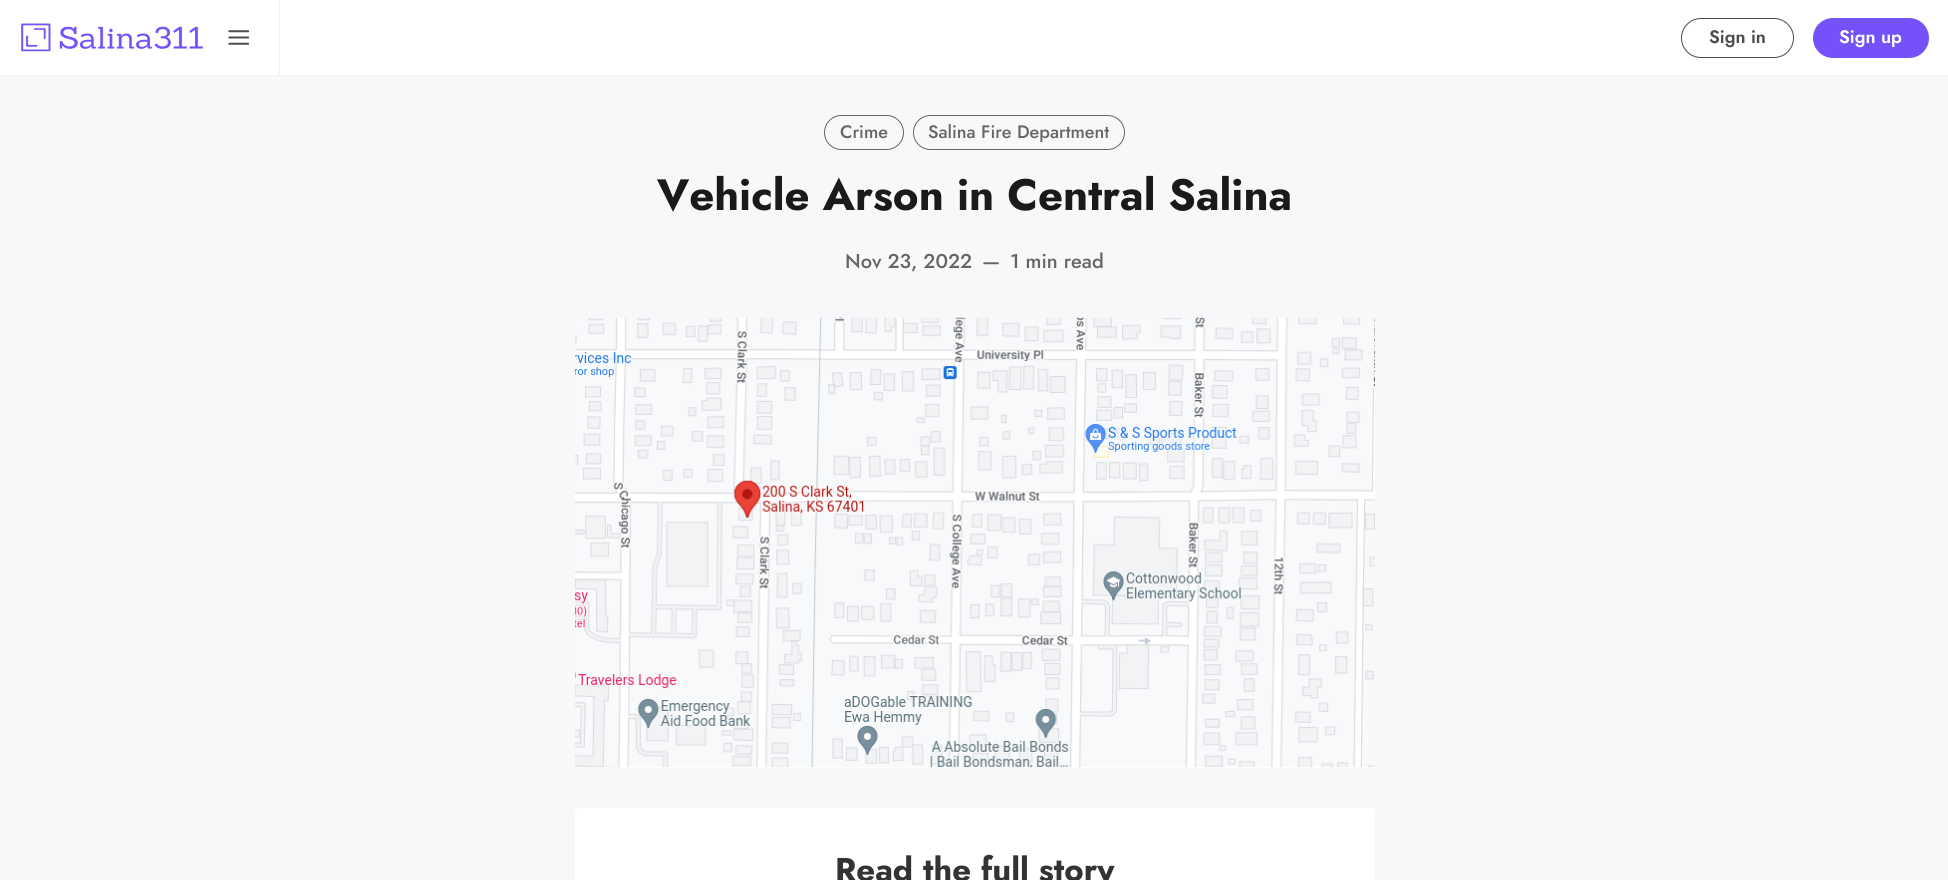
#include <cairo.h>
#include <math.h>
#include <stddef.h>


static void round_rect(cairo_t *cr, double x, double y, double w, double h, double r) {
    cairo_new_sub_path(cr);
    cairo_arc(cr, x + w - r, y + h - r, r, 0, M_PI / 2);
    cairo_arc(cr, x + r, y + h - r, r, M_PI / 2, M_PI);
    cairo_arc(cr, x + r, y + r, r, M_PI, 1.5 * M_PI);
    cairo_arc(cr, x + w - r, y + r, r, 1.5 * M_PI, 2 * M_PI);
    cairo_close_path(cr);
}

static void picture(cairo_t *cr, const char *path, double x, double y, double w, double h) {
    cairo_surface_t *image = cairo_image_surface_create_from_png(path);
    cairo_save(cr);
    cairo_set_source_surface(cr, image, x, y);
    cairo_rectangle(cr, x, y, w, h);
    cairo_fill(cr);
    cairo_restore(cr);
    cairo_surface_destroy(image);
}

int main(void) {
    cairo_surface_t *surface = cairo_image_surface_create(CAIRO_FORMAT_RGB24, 1948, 880);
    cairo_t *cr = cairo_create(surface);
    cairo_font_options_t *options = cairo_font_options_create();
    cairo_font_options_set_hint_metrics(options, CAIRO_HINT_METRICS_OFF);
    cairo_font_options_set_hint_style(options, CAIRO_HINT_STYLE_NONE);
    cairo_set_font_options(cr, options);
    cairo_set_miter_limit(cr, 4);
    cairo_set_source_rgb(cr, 0.965, 0.969, 0.976);
    cairo_paint(cr);
    cairo_rectangle(cr, -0.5, -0.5, 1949, 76);
    cairo_set_source_rgb(cr, 0.949, 0.949, 0.949);
    cairo_set_line_width(cr, 1);
    cairo_stroke(cr);
    cairo_set_source_rgb(cr, 1, 1, 1);
    cairo_rectangle(cr, 0, 0, 1948, 75);
    cairo_fill(cr);
    cairo_set_source_rgb(cr, 0.949, 0.949, 0.949);
    cairo_rectangle(cr, 279, 0, 1, 75);
    cairo_fill(cr);
    picture(cr, "img1.png", 21, 23, 182, 29);
    picture(cr, "img2.png", 228, 30, 22, 15);
    round_rect(cr, 1681.5, 18.5, 112, 39, 19.5);
    cairo_set_source_rgb(cr, 0.302, 0.302, 0.302);
    cairo_stroke(cr);
    cairo_select_font_face(cr, "Jost SemiBold", CAIRO_FONT_SLANT_NORMAL, CAIRO_FONT_WEIGHT_NORMAL);
    cairo_set_font_size(cr, 18);
    cairo_move_to(cr, 1709, 43);
    cairo_show_text(cr, "Sign in");
    cairo_set_source_rgb(cr, 0.455, 0.318, 0.969);
    round_rect(cr, 1813, 18, 116, 40, 20);
    cairo_fill(cr);
    cairo_set_source_rgb(cr, 1, 1, 1);
    cairo_move_to(cr, 1839, 43);
    cairo_show_text(cr, "Sign up");
    round_rect(cr, 824.5, 115.5, 79, 34, 17);
    cairo_set_source_rgb(cr, 0.4, 0.4, 0.4);
    cairo_stroke(cr);
    cairo_select_font_face(cr, "Jost Medium", CAIRO_FONT_SLANT_NORMAL, CAIRO_FONT_WEIGHT_NORMAL);
    cairo_move_to(cr, 840, 138);
    cairo_show_text(cr, "Crime");
    round_rect(cr, 913.5, 115.5, 211, 34, 17);
    cairo_stroke(cr);
    cairo_move_to(cr, 928, 138);
    cairo_show_text(cr, "Salina Fire Department");
    cairo_select_font_face(cr, "Jost", CAIRO_FONT_SLANT_NORMAL, CAIRO_FONT_WEIGHT_BOLD);
    cairo_set_font_size(cr, 43.75);
    cairo_set_source_rgb(cr, 0.102, 0.102, 0.102);
    cairo_move_to(cr, 657, 210);
    cairo_show_text(cr, "Vehicle Arson in Central Salina");
    cairo_select_font_face(cr, "Jost Medium", CAIRO_FONT_SLANT_NORMAL, CAIRO_FONT_WEIGHT_NORMAL);
    cairo_set_font_size(cr, 20);
    cairo_set_source_rgb(cr, 0.4, 0.4, 0.4);
    cairo_move_to(cr, 845, 268);
    cairo_show_text(cr, "Nov 23, 2022");
    cairo_move_to(cr, 982, 268);
    cairo_show_text(cr, "—");
    cairo_move_to(cr, 1010, 268);
    cairo_show_text(cr, "1 min read");
    cairo_set_source_rgb(cr, 1, 1, 1);
    round_rect(cr, 575, 318, 800, 450, 2.5);
    cairo_fill(cr);
    picture(cr, "img3.png", 575, 317, 800, 451);
    round_rect(cr, 575, 808, 800, 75, 2.5);
    cairo_fill(cr);
    cairo_select_font_face(cr, "Jost", CAIRO_FONT_SLANT_NORMAL, CAIRO_FONT_WEIGHT_BOLD);
    cairo_set_font_size(cr, 32.9);
    cairo_set_source_rgb(cr, 0.2, 0.2, 0.2);
    cairo_move_to(cr, 835, 881);
    cairo_show_text(cr, "Read the full story");
    cairo_surface_write_to_png(surface, "page.png");
    cairo_font_options_destroy(options);
    cairo_destroy(cr);
    cairo_surface_destroy(surface);
    return 0;
}
